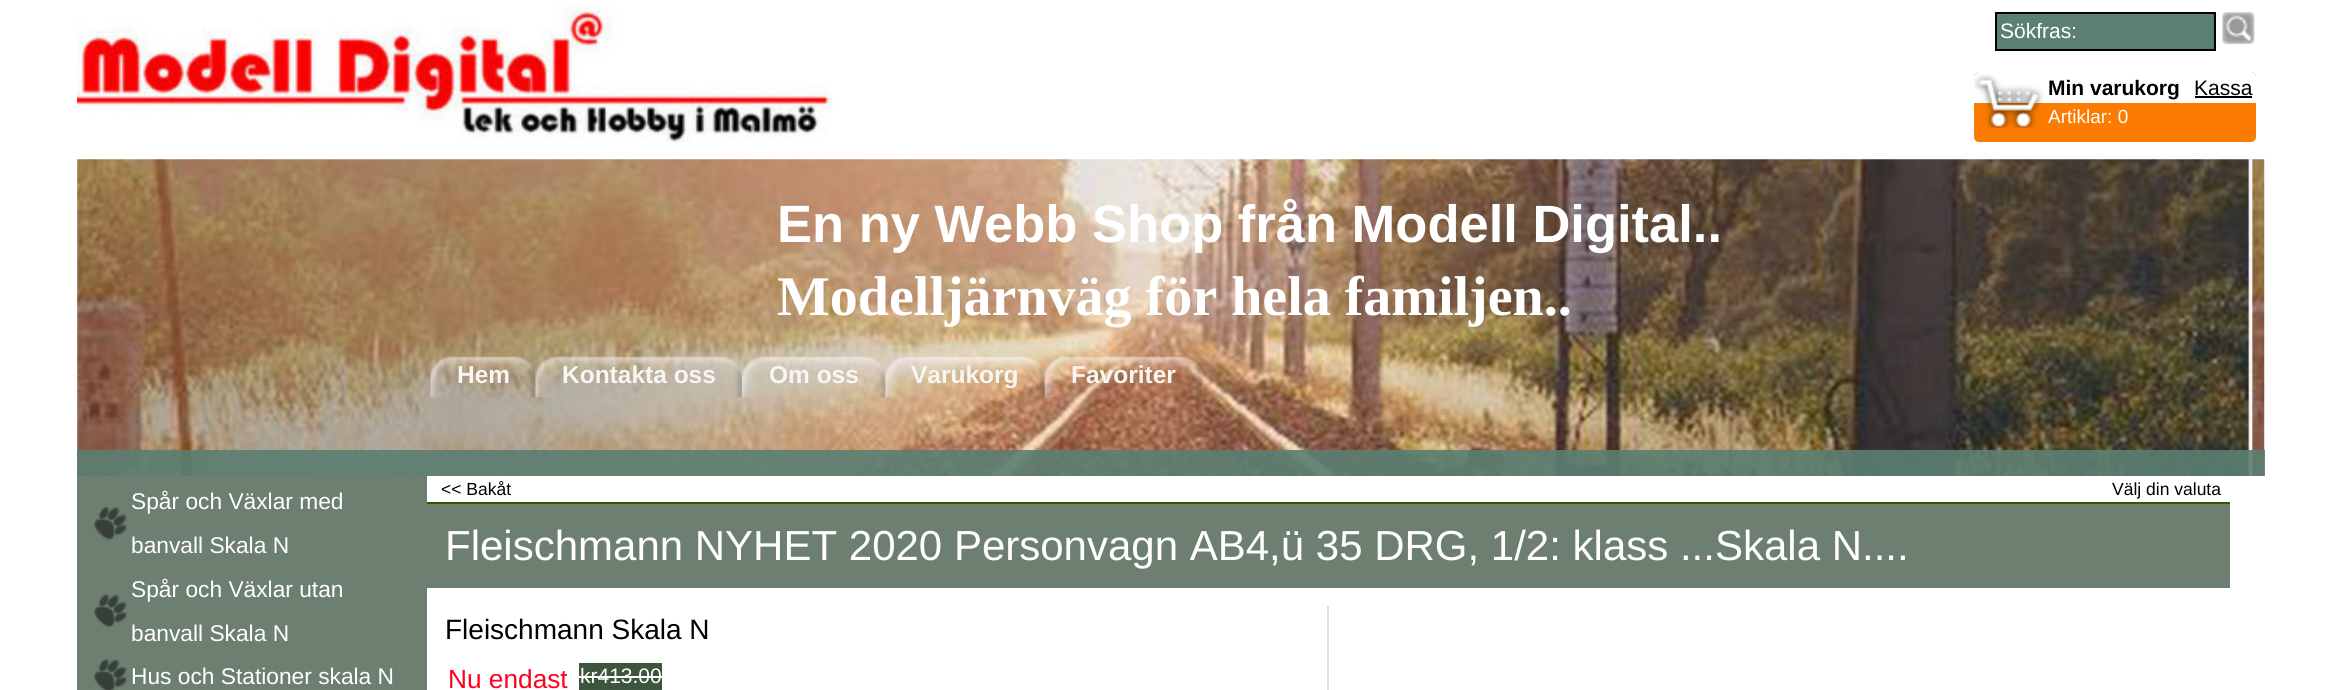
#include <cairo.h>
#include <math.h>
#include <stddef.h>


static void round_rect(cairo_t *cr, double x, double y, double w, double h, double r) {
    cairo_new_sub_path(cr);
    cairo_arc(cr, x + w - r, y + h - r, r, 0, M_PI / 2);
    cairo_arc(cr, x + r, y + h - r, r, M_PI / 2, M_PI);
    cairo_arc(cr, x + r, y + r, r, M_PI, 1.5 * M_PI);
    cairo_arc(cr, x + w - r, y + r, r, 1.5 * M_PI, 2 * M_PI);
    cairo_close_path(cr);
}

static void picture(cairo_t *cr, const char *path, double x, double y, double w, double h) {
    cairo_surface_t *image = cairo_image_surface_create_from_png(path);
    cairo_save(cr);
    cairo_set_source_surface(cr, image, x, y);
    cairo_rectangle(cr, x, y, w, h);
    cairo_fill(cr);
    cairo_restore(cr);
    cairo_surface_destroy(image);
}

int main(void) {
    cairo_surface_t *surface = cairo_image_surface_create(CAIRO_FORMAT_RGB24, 2340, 690);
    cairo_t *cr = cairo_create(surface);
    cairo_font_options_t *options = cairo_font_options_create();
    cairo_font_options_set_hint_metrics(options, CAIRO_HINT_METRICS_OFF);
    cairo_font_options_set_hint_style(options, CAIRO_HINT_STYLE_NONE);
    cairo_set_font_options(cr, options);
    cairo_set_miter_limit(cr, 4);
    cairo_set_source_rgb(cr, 1, 1, 1);
    cairo_paint(cr);
    picture(cr, "img1.png", 77, 2, 756, 141);
    cairo_set_source_rgb(cr, 0.357, 0.498, 0.443);
    cairo_rectangle(cr, 1996, 13, 219, 37);
    cairo_fill_preserve(cr);
    cairo_set_source_rgb(cr, 0, 0, 0);
    cairo_stroke(cr);
    cairo_select_font_face(cr, "Liberation Sans", CAIRO_FONT_SLANT_NORMAL, CAIRO_FONT_WEIGHT_NORMAL);
    cairo_set_font_size(cr, 21);
    cairo_set_source_rgb(cr, 1, 1, 1);
    cairo_move_to(cr, 2000, 38);
    cairo_show_text(cr, "Sökfras:");
    picture(cr, "img2.png", 2222, 12, 33, 33);
    cairo_set_source_rgb(cr, 0.988, 0.486, 0.004);
    round_rect(cr, 1974, 72, 282, 70, 5);
    cairo_fill(cr);
    round_rect(cr, 1974, 72, 282, 56, 5);
    cairo_fill(cr);
    cairo_set_source_rgb(cr, 1, 1, 1);
    cairo_new_path(cr);
    cairo_move_to(cr, 1979, 72);
    cairo_line_to(cr, 2251, 72);
    cairo_curve_to(cr, 2254, 72, 2256, 74, 2256, 77);
    cairo_line_to(cr, 2256, 103);
    cairo_line_to(cr, 1974, 103);
    cairo_line_to(cr, 1974, 77);
    cairo_curve_to(cr, 1974, 74, 1976, 72, 1979, 72);
    cairo_close_path(cr);
    cairo_fill(cr);
    picture(cr, "img3.png", 1974, 74, 70, 54);
    cairo_select_font_face(cr, "Liberation Sans", CAIRO_FONT_SLANT_NORMAL, CAIRO_FONT_WEIGHT_BOLD);
    cairo_set_source_rgb(cr, 0, 0, 0);
    cairo_move_to(cr, 2048, 95);
    cairo_show_text(cr, "Min varukorg");
    cairo_select_font_face(cr, "Liberation Sans", CAIRO_FONT_SLANT_NORMAL, CAIRO_FONT_WEIGHT_NORMAL);
    cairo_move_to(cr, 2194, 95);
    cairo_show_text(cr, "Kassa");
    cairo_rectangle(cr, 2195, 96, 57, 2);
    cairo_fill(cr);
    cairo_set_font_size(cr, 19);
    cairo_set_source_rgb(cr, 1, 1, 1);
    cairo_move_to(cr, 2048, 123);
    cairo_show_text(cr, "Artiklar: 0");
    picture(cr, "img4.png", 77, 159, 2188, 317);
    cairo_select_font_face(cr, "Liberation Sans", CAIRO_FONT_SLANT_NORMAL, CAIRO_FONT_WEIGHT_BOLD);
    cairo_set_font_size(cr, 52.5);
    cairo_move_to(cr, 777, 242);
    cairo_show_text(cr, "En ny Webb Shop från Modell Digital..");
    cairo_select_font_face(cr, "Liberation Serif", CAIRO_FONT_SLANT_NORMAL, CAIRO_FONT_WEIGHT_BOLD);
    cairo_set_font_size(cr, 56);
    cairo_move_to(cr, 777, 315);
    cairo_show_text(cr, "Modelljärnväg för hela familjen..");
    picture(cr, "img5.png", 430, 356, 27, 42);
    picture(cr, "img7.png", 509, 356, 27, 42);
    picture(cr, "img6.png", 456, 356, 54, 16);
    cairo_select_font_face(cr, "Liberation Sans", CAIRO_FONT_SLANT_NORMAL, CAIRO_FONT_WEIGHT_BOLD);
    cairo_set_font_size(cr, 24.5);
    cairo_set_source_rgb(cr, 0.969, 0.961, 0.949);
    cairo_move_to(cr, 457, 383);
    cairo_show_text(cr, "Hem");
    picture(cr, "img8.png", 535, 356, 27, 42);
    picture(cr, "img10.png", 715, 356, 27, 42);
    picture(cr, "img9.png", 561, 356, 155, 15);
    cairo_move_to(cr, 562, 383);
    cairo_show_text(cr, "Kontakta oss");
    picture(cr, "img11.png", 742, 356, 27, 42);
    picture(cr, "img13.png", 859, 356, 27, 42);
    picture(cr, "img12.png", 768, 356, 92, 14);
    cairo_move_to(cr, 769, 383);
    cairo_show_text(cr, "Om oss");
    picture(cr, "img14.png", 885, 356, 27, 42);
    picture(cr, "img16.png", 1018, 356, 27, 42);
    picture(cr, "img15.png", 911, 356, 108, 15);
    cairo_move_to(cr, 911, 383);
    cairo_show_text(cr, "Varukorg");
    picture(cr, "img17.png", 1044, 356, 27, 42);
    picture(cr, "img18.png", 1071, 356, 105, 16);
    cairo_move_to(cr, 1071, 383);
    cairo_show_text(cr, "Favoriter");
    picture(cr, "img19.png", 1176, 356, 27, 42);
    cairo_set_source_rgba(cr, 0.357, 0.498, 0.443, 0.9);
    cairo_rectangle(cr, 77, 450, 2188, 26);
    cairo_fill(cr);
    cairo_set_source_rgb(cr, 0.427, 0.498, 0.443);
    cairo_rectangle(cr, 77, 476, 350, 214);
    cairo_fill(cr);
    picture(cr, "img20.png", 94, 507, 33, 33);
    cairo_select_font_face(cr, "Liberation Sans", CAIRO_FONT_SLANT_NORMAL, CAIRO_FONT_WEIGHT_NORMAL);
    cairo_set_font_size(cr, 22.75);
    cairo_set_source_rgb(cr, 1, 1, 1);
    cairo_move_to(cr, 131, 509);
    cairo_show_text(cr, "Spår och Växlar med");
    cairo_move_to(cr, 131, 553);
    cairo_show_text(cr, "banvall Skala N");
    picture(cr, "img21.png", 94, 594, 33, 33);
    cairo_move_to(cr, 131, 597);
    cairo_show_text(cr, "Spår och Växlar utan");
    cairo_move_to(cr, 131, 641);
    cairo_show_text(cr, "banvall Skala N");
    picture(cr, "img22.png", 94, 659, 33, 31);
    cairo_move_to(cr, 131, 684);
    cairo_show_text(cr, "Hus och Stationer skala N");
    cairo_set_source_rgb(cr, 0.208, 0.333, 0);
    cairo_rectangle(cr, 427, 502, 1803, 2);
    cairo_fill(cr);
    cairo_set_font_size(cr, 17.5);
    cairo_set_source_rgb(cr, 0, 0, 0);
    cairo_move_to(cr, 441, 495);
    cairo_show_text(cr, "<< Bakåt");
    cairo_move_to(cr, 2112, 495);
    cairo_show_text(cr, "Välj din valuta");
    cairo_set_source_rgb(cr, 0.427, 0.498, 0.443);
    cairo_rectangle(cr, 427, 504, 1803, 84);
    cairo_fill(cr);
    cairo_set_font_size(cr, 42);
    cairo_set_source_rgb(cr, 1, 1, 1);
    cairo_move_to(cr, 445, 560);
    cairo_show_text(cr, "Fleischmann NYHET 2020 Personvagn AB4,ü 35 DRG, 1/2: klass ...Skala N....");
    cairo_set_source_rgb(cr, 0.863, 0.863, 0.957);
    cairo_rectangle(cr, 1327, 606, 2, 84);
    cairo_fill(cr);
    cairo_set_font_size(cr, 28);
    cairo_set_source_rgb(cr, 0, 0, 0);
    cairo_move_to(cr, 445, 639);
    cairo_show_text(cr, "Fleischmann Skala N");
    cairo_set_font_size(cr, 26.25);
    cairo_set_source_rgb(cr, 1, 0, 0.122);
    cairo_move_to(cr, 448, 688);
    cairo_show_text(cr, "Nu endast");
    cairo_set_source_rgb(cr, 0.235, 0.333, 0.235);
    cairo_rectangle(cr, 579, 663, 83, 27);
    cairo_fill(cr);
    cairo_set_font_size(cr, 21);
    cairo_set_source_rgb(cr, 1, 1, 1);
    cairo_move_to(cr, 580, 683);
    cairo_show_text(cr, "kr413.00");
    cairo_rectangle(cr, 579, 676, 83, 2);
    cairo_fill(cr);
    cairo_surface_write_to_png(surface, "page.png");
    cairo_font_options_destroy(options);
    cairo_destroy(cr);
    cairo_surface_destroy(surface);
    return 0;
}
